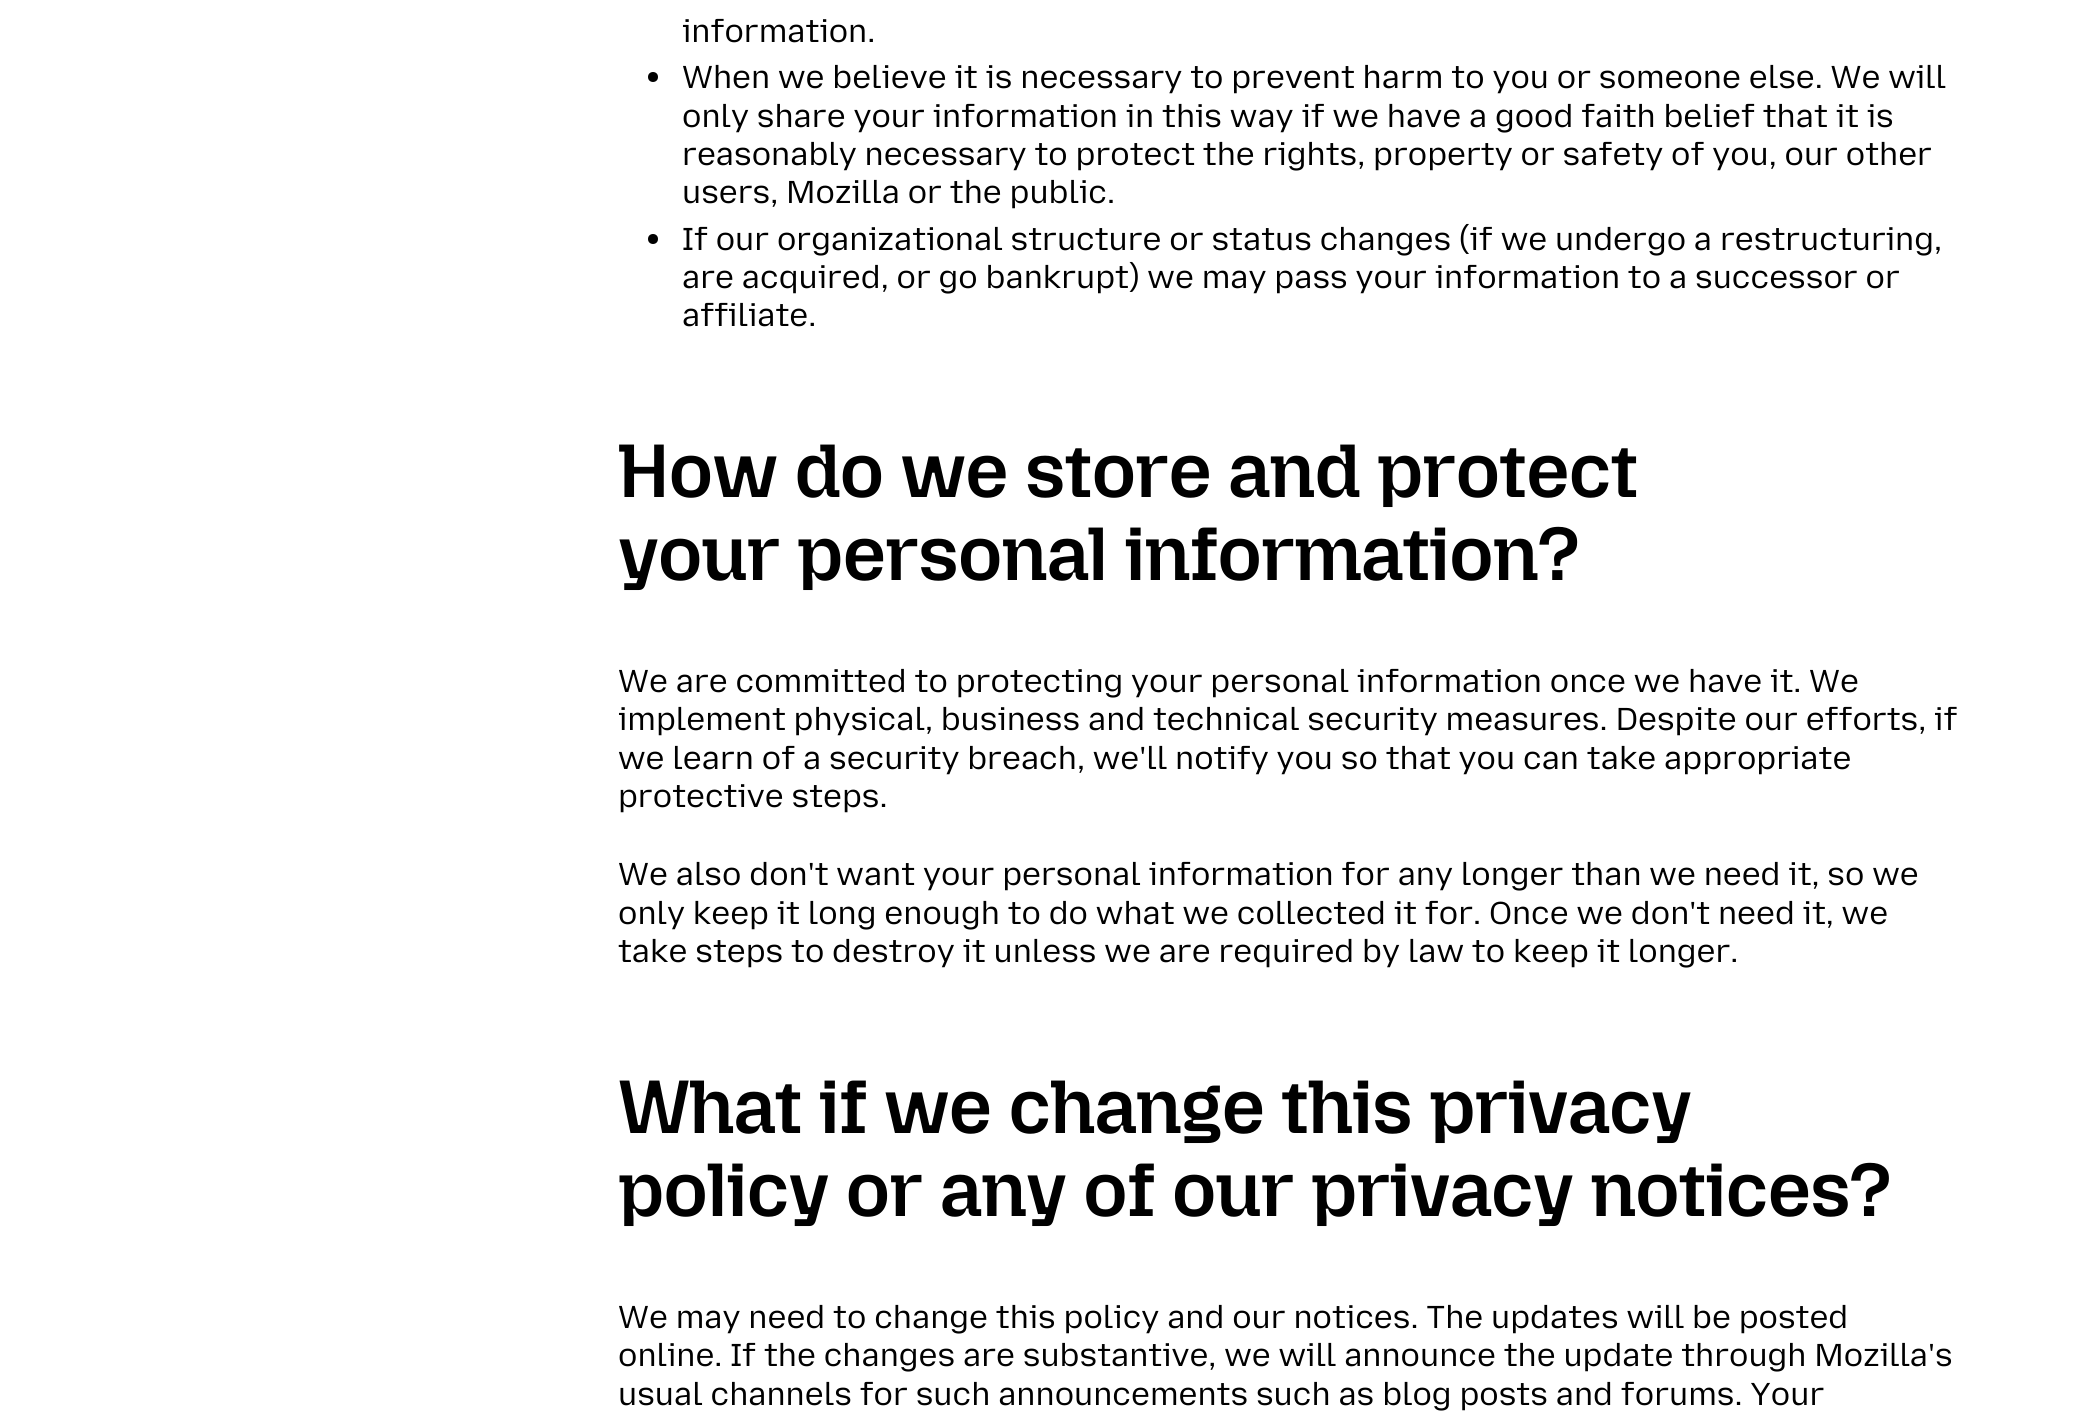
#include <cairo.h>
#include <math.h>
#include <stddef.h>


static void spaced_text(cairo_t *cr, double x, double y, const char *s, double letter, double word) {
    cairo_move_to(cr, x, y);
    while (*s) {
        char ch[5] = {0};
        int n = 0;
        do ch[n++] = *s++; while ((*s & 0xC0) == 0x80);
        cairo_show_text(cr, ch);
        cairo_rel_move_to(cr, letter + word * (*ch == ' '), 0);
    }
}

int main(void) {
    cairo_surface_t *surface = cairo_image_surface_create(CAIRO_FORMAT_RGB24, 2087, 1414);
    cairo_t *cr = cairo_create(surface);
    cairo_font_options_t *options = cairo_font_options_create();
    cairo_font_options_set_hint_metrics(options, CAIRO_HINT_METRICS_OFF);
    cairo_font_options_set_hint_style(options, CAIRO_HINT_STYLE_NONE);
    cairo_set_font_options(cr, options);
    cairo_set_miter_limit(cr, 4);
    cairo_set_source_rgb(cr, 1, 1, 1);
    cairo_paint(cr);
    cairo_select_font_face(cr, "Mozilla Text", CAIRO_FONT_SLANT_NORMAL, CAIRO_FONT_WEIGHT_NORMAL);
    cairo_set_font_size(cr, 32);
    cairo_set_source_rgb(cr, 0, 0, 0);
    cairo_move_to(cr, 682, 42);
    cairo_show_text(cr, "information.");
    cairo_new_path(cr);
    cairo_arc(cr, 653, 77, 5, 0, 2 * M_PI);
    cairo_fill(cr);
    cairo_move_to(cr, 682, 88);
    cairo_show_text(cr, "When we believe it is necessary to prevent harm to you or someone else. We will");
    cairo_move_to(cr, 682, 127);
    cairo_show_text(cr, "only share your information in this way if we have a good faith belief that it is");
    cairo_move_to(cr, 682, 165);
    cairo_show_text(cr, "reasonably necessary to protect the rights, property or safety of you, our other");
    cairo_move_to(cr, 682, 203);
    cairo_show_text(cr, "users, Mozilla or the public.");
    cairo_new_path(cr);
    cairo_arc(cr, 653, 239, 5, 0, 2 * M_PI);
    cairo_fill(cr);
    cairo_move_to(cr, 682, 250);
    cairo_show_text(cr, "If our organizational structure or status changes (if we undergo a restructuring,");
    cairo_move_to(cr, 682, 288);
    cairo_show_text(cr, "are acquired, or go bankrupt) we may pass your information to a successor or");
    cairo_move_to(cr, 682, 326);
    cairo_show_text(cr, "affiliate.");
    cairo_select_font_face(cr, "Mozilla Headline SemiBold", CAIRO_FONT_SLANT_NORMAL, CAIRO_FONT_WEIGHT_NORMAL);
    cairo_set_font_size(cr, 76);
    spaced_text(cr, 618, 497, "How do we store and protect", -0.75, 0);
    spaced_text(cr, 618, 580, "your personal information?", -0.75, 0);
    cairo_select_font_face(cr, "Mozilla Text", CAIRO_FONT_SLANT_NORMAL, CAIRO_FONT_WEIGHT_NORMAL);
    cairo_set_font_size(cr, 32);
    cairo_move_to(cr, 618, 692);
    cairo_show_text(cr, "We are committed to protecting your personal information once we have it. We");
    cairo_move_to(cr, 618, 730);
    cairo_show_text(cr, "implement physical, business and technical security measures. Despite our efforts, if");
    cairo_move_to(cr, 618, 769);
    cairo_show_text(cr, "we learn of a security breach, we'll notify you so that you can take appropriate");
    cairo_move_to(cr, 618, 807);
    cairo_show_text(cr, "protective steps.");
    cairo_move_to(cr, 618, 885);
    cairo_show_text(cr, "We also don't want your personal information for any longer than we need it, so we");
    cairo_move_to(cr, 618, 924);
    cairo_show_text(cr, "only keep it long enough to do what we collected it for. Once we don't need it, we");
    cairo_move_to(cr, 618, 962);
    cairo_show_text(cr, "take steps to destroy it unless we are required by law to keep it longer.");
    cairo_select_font_face(cr, "Mozilla Headline SemiBold", CAIRO_FONT_SLANT_NORMAL, CAIRO_FONT_WEIGHT_NORMAL);
    cairo_set_font_size(cr, 76);
    spaced_text(cr, 618, 1133, "What if we change this privacy", -0.75, 0);
    spaced_text(cr, 618, 1216, "policy or any of our privacy notices?", -0.75, 0);
    cairo_select_font_face(cr, "Mozilla Text", CAIRO_FONT_SLANT_NORMAL, CAIRO_FONT_WEIGHT_NORMAL);
    cairo_set_font_size(cr, 32);
    cairo_move_to(cr, 618, 1328);
    cairo_show_text(cr, "We may need to change this policy and our notices. The updates will be posted");
    cairo_move_to(cr, 618, 1366);
    cairo_show_text(cr, "online. If the changes are substantive, we will announce the update through Mozilla's");
    cairo_move_to(cr, 618, 1405);
    cairo_show_text(cr, "usual channels for such announcements such as blog posts and forums. Your");
    cairo_surface_write_to_png(surface, "page.png");
    cairo_font_options_destroy(options);
    cairo_destroy(cr);
    cairo_surface_destroy(surface);
    return 0;
}
